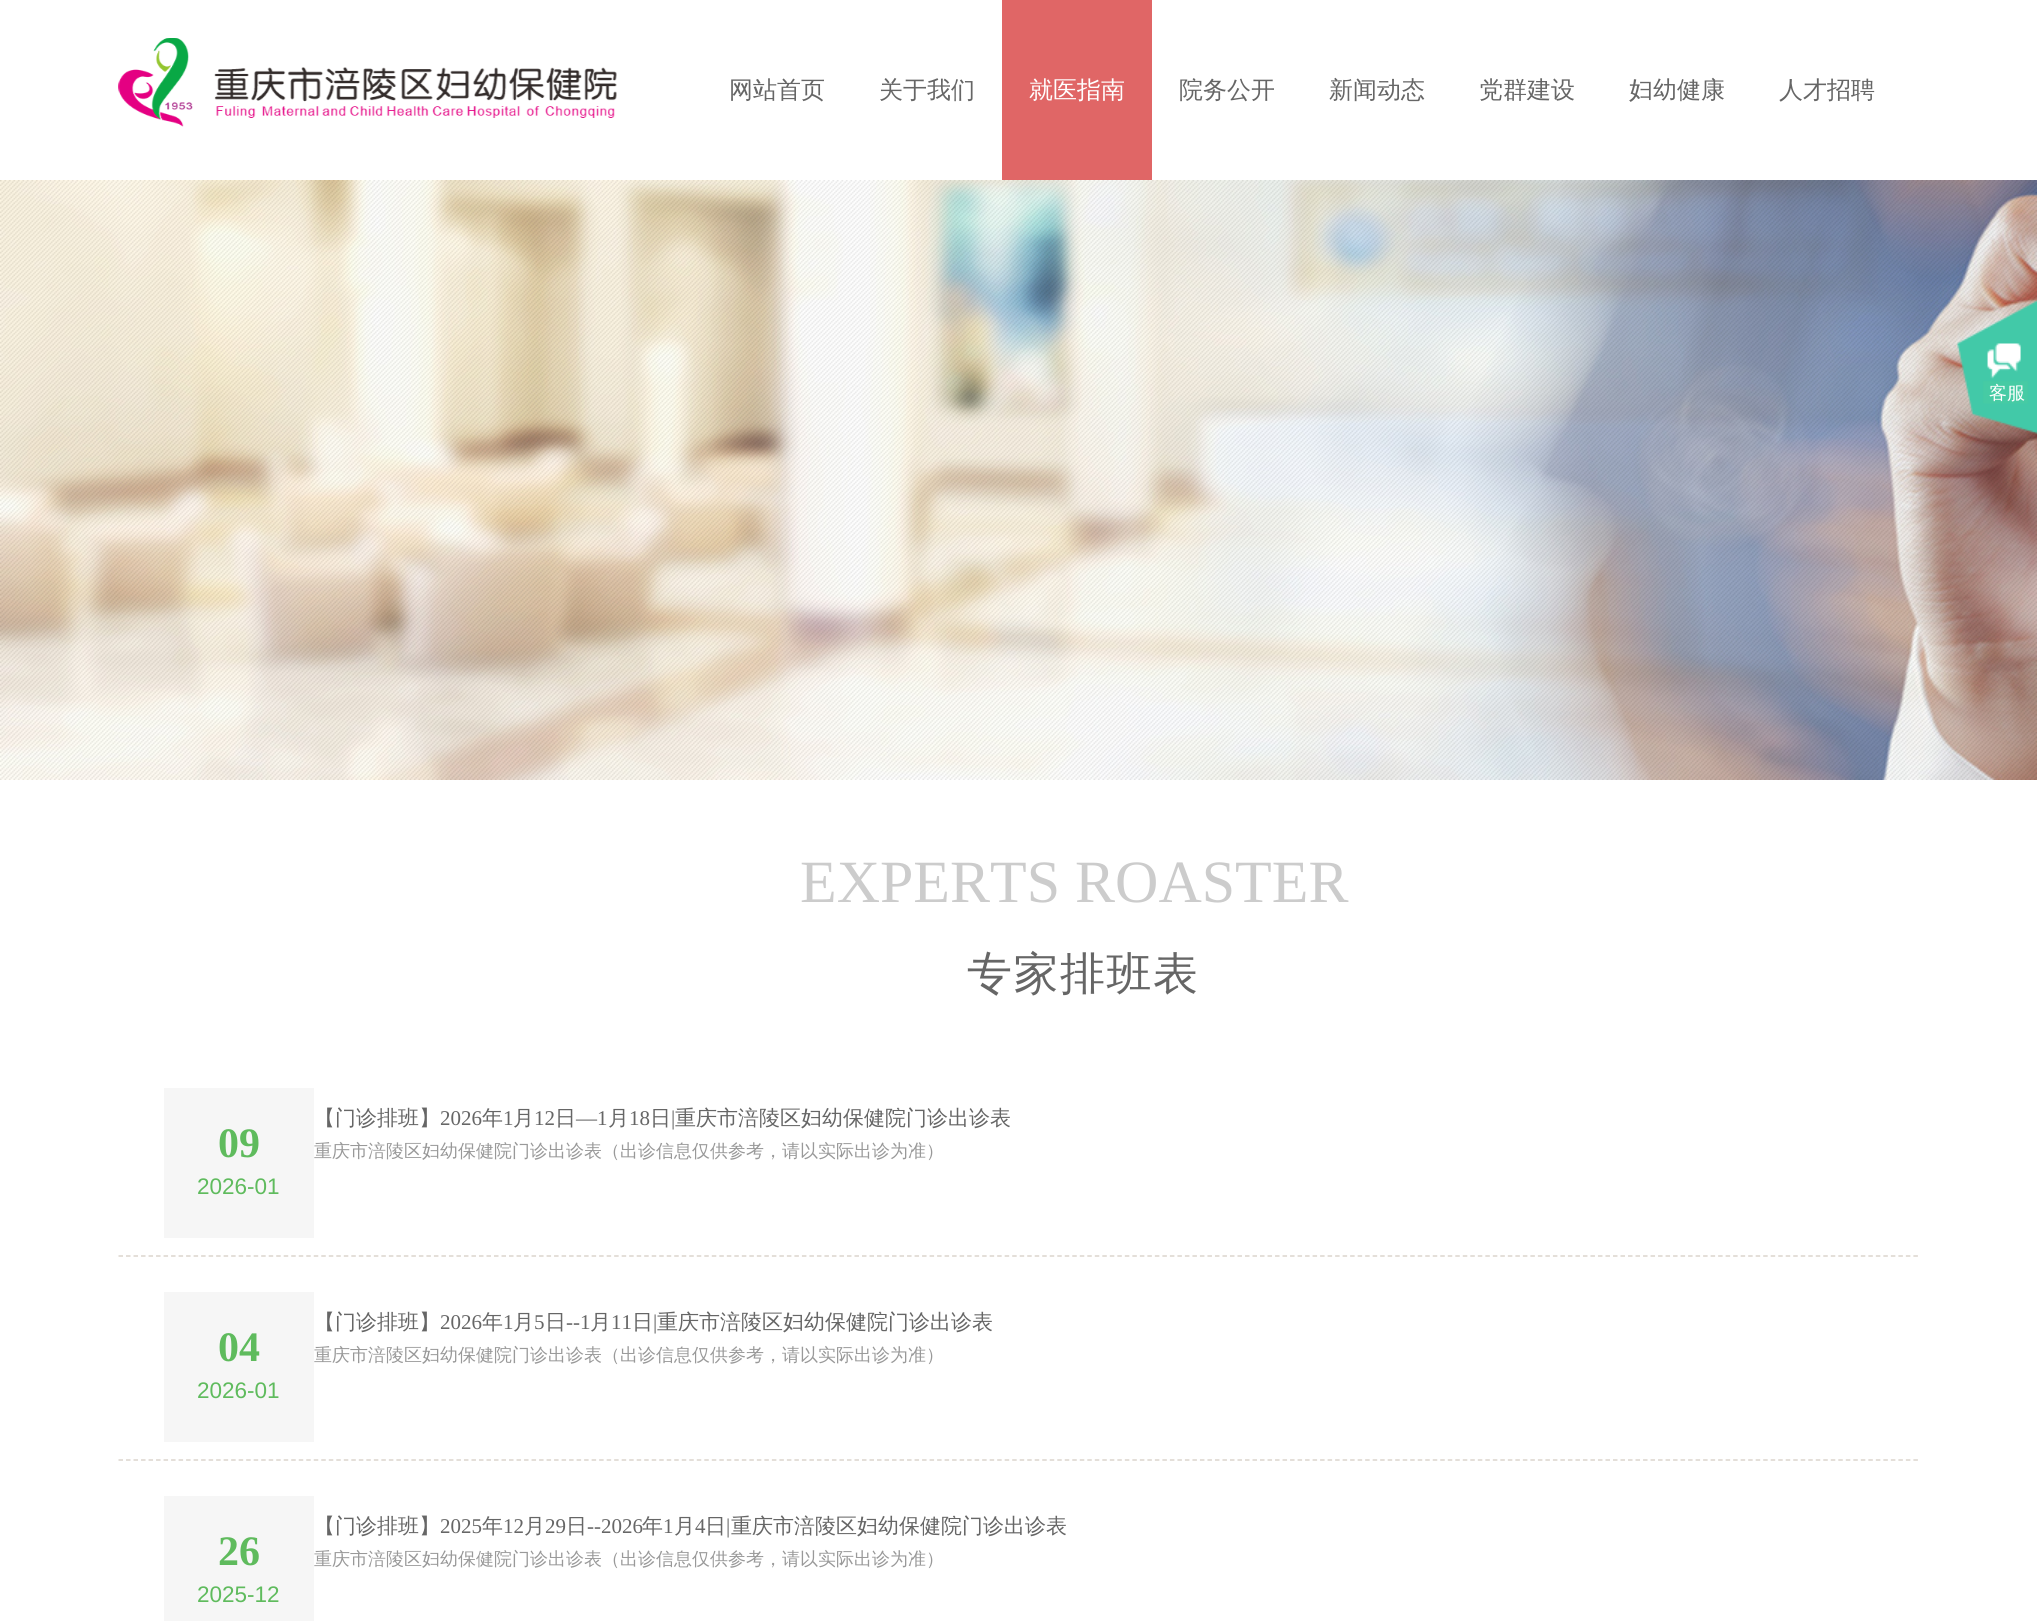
#include <cairo.h>
#include <math.h>
#include <stddef.h>


static void spaced_text(cairo_t *cr, double x, double y, const char *s, double letter, double word) {
    cairo_move_to(cr, x, y);
    while (*s) {
        char ch[5] = {0};
        int n = 0;
        do ch[n++] = *s++; while ((*s & 0xC0) == 0x80);
        cairo_show_text(cr, ch);
        cairo_rel_move_to(cr, letter + word * (*ch == ' '), 0);
    }
}

static void picture(cairo_t *cr, const char *path, double x, double y, double w, double h) {
    cairo_surface_t *image = cairo_image_surface_create_from_png(path);
    cairo_save(cr);
    cairo_set_source_surface(cr, image, x, y);
    cairo_rectangle(cr, x, y, w, h);
    cairo_fill(cr);
    cairo_restore(cr);
    cairo_surface_destroy(image);
}

int main(void) {
    cairo_surface_t *surface = cairo_image_surface_create(CAIRO_FORMAT_RGB24, 2037, 1621);
    cairo_t *cr = cairo_create(surface);
    cairo_font_options_t *options = cairo_font_options_create();
    cairo_font_options_set_hint_metrics(options, CAIRO_HINT_METRICS_OFF);
    cairo_font_options_set_hint_style(options, CAIRO_HINT_STYLE_NONE);
    cairo_set_font_options(cr, options);
    cairo_set_miter_limit(cr, 4);
    cairo_set_source_rgb(cr, 1, 1, 1);
    cairo_paint(cr);
    picture(cr, "img1.png", 118, 38, 499, 89);
    cairo_select_font_face(cr, "WenQuanYi Zen Hei Medium", CAIRO_FONT_SLANT_NORMAL, CAIRO_FONT_WEIGHT_NORMAL);
    cairo_set_font_size(cr, 24);
    cairo_set_source_rgb(cr, 0.4, 0.4, 0.4);
    cairo_move_to(cr, 729, 98);
    cairo_show_text(cr, "网站首页");
    cairo_move_to(cr, 879, 98);
    cairo_show_text(cr, "关于我们");
    cairo_set_source_rgb(cr, 0.878, 0.4, 0.4);
    cairo_rectangle(cr, 1002, 0, 150, 180);
    cairo_fill(cr);
    cairo_set_source_rgb(cr, 1, 1, 1);
    cairo_move_to(cr, 1029, 98);
    cairo_show_text(cr, "就医指南");
    cairo_set_source_rgb(cr, 0.4, 0.4, 0.4);
    cairo_move_to(cr, 1179, 98);
    cairo_show_text(cr, "院务公开");
    cairo_move_to(cr, 1329, 98);
    cairo_show_text(cr, "新闻动态");
    cairo_move_to(cr, 1479, 98);
    cairo_show_text(cr, "党群建设");
    cairo_move_to(cr, 1629, 98);
    cairo_show_text(cr, "妇幼健康");
    cairo_move_to(cr, 1779, 98);
    cairo_show_text(cr, "人才招聘");
    picture(cr, "img2.png", 0, 180, 2037, 600);
    cairo_select_font_face(cr, "Liberation Serif", CAIRO_FONT_SLANT_NORMAL, CAIRO_FONT_WEIGHT_NORMAL);
    cairo_set_font_size(cr, 60);
    cairo_set_source_rgb(cr, 0.8, 0.8, 0.8);
    cairo_move_to(cr, 800, 902);
    cairo_show_text(cr, "EXPERTS ROASTER");
    cairo_select_font_face(cr, "WenQuanYi Zen Hei Medium", CAIRO_FONT_SLANT_NORMAL, CAIRO_FONT_WEIGHT_NORMAL);
    cairo_set_font_size(cr, 45);
    cairo_set_source_rgb(cr, 0.4, 0.4, 0.4);
    spaced_text(cr, 967, 989, "专家排班表", 1.5, 0);
    cairo_new_path(cr);
    cairo_move_to(cr, 118.5, 1256);
    cairo_line_to(cr, 1918.5, 1256);
    cairo_set_source_rgb(cr, 0.859, 0.831, 0.804);
    cairo_set_line_width(cr, 1.5);
    cairo_set_dash(cr, (double[]){4.5, 3.01}, 2, 0);
    cairo_stroke(cr);
    cairo_set_source_rgb(cr, 0.961, 0.961, 0.961);
    cairo_rectangle(cr, 164, 1088, 150, 150);
    cairo_fill(cr);
    cairo_select_font_face(cr, "Liberation Serif", CAIRO_FONT_SLANT_NORMAL, CAIRO_FONT_WEIGHT_BOLD);
    cairo_set_font_size(cr, 42);
    cairo_set_source_rgb(cr, 0.373, 0.733, 0.365);
    cairo_move_to(cr, 218, 1157);
    cairo_show_text(cr, "09");
    cairo_select_font_face(cr, "Liberation Sans", CAIRO_FONT_SLANT_NORMAL, CAIRO_FONT_WEIGHT_NORMAL);
    cairo_set_font_size(cr, 22.5);
    cairo_move_to(cr, 197, 1194);
    cairo_show_text(cr, "2026-01");
    cairo_select_font_face(cr, "WenQuanYi Zen Hei Medium", CAIRO_FONT_SLANT_NORMAL, CAIRO_FONT_WEIGHT_NORMAL);
    cairo_set_font_size(cr, 21);
    cairo_set_source_rgb(cr, 0.4, 0.4, 0.4);
    cairo_move_to(cr, 314, 1125);
    cairo_show_text(cr, "【门诊排班】");
    cairo_select_font_face(cr, "Liberation Serif", CAIRO_FONT_SLANT_NORMAL, CAIRO_FONT_WEIGHT_NORMAL);
    cairo_move_to(cr, 440, 1125);
    cairo_show_text(cr, "2026");
    cairo_select_font_face(cr, "WenQuanYi Zen Hei Medium", CAIRO_FONT_SLANT_NORMAL, CAIRO_FONT_WEIGHT_NORMAL);
    cairo_move_to(cr, 482, 1125);
    cairo_show_text(cr, "年");
    cairo_select_font_face(cr, "Liberation Serif", CAIRO_FONT_SLANT_NORMAL, CAIRO_FONT_WEIGHT_NORMAL);
    cairo_move_to(cr, 503, 1125);
    cairo_show_text(cr, "1");
    cairo_select_font_face(cr, "WenQuanYi Zen Hei Medium", CAIRO_FONT_SLANT_NORMAL, CAIRO_FONT_WEIGHT_NORMAL);
    cairo_move_to(cr, 513, 1125);
    cairo_show_text(cr, "月");
    cairo_select_font_face(cr, "Liberation Serif", CAIRO_FONT_SLANT_NORMAL, CAIRO_FONT_WEIGHT_NORMAL);
    cairo_move_to(cr, 534, 1125);
    cairo_show_text(cr, "12");
    cairo_select_font_face(cr, "WenQuanYi Zen Hei Medium", CAIRO_FONT_SLANT_NORMAL, CAIRO_FONT_WEIGHT_NORMAL);
    cairo_move_to(cr, 555, 1125);
    cairo_show_text(cr, "日");
    cairo_select_font_face(cr, "Liberation Serif", CAIRO_FONT_SLANT_NORMAL, CAIRO_FONT_WEIGHT_NORMAL);
    cairo_move_to(cr, 576, 1125);
    cairo_show_text(cr, "—1");
    cairo_select_font_face(cr, "WenQuanYi Zen Hei Medium", CAIRO_FONT_SLANT_NORMAL, CAIRO_FONT_WEIGHT_NORMAL);
    cairo_move_to(cr, 608, 1125);
    cairo_show_text(cr, "月");
    cairo_select_font_face(cr, "Liberation Serif", CAIRO_FONT_SLANT_NORMAL, CAIRO_FONT_WEIGHT_NORMAL);
    cairo_move_to(cr, 629, 1125);
    cairo_show_text(cr, "18");
    cairo_select_font_face(cr, "WenQuanYi Zen Hei Medium", CAIRO_FONT_SLANT_NORMAL, CAIRO_FONT_WEIGHT_NORMAL);
    cairo_move_to(cr, 650, 1125);
    cairo_show_text(cr, "日");
    cairo_select_font_face(cr, "Liberation Serif", CAIRO_FONT_SLANT_NORMAL, CAIRO_FONT_WEIGHT_NORMAL);
    cairo_move_to(cr, 671, 1125);
    cairo_show_text(cr, "|");
    cairo_select_font_face(cr, "WenQuanYi Zen Hei Medium", CAIRO_FONT_SLANT_NORMAL, CAIRO_FONT_WEIGHT_NORMAL);
    cairo_move_to(cr, 675, 1125);
    cairo_show_text(cr, "重庆市涪陵区妇幼保健院门诊出诊表");
    cairo_set_font_size(cr, 18);
    cairo_set_source_rgb(cr, 0.6, 0.6, 0.6);
    cairo_move_to(cr, 314, 1157);
    cairo_show_text(cr, "重庆市涪陵区妇幼保健院门诊出诊表（出诊信息仅供参考，请以实际出诊为准）");
    cairo_new_path(cr);
    cairo_move_to(cr, 118.5, 1460);
    cairo_line_to(cr, 1918.5, 1460);
    cairo_set_source_rgb(cr, 0.859, 0.831, 0.804);
    cairo_stroke(cr);
    cairo_set_source_rgb(cr, 0.961, 0.961, 0.961);
    cairo_rectangle(cr, 164, 1292, 150, 150);
    cairo_fill(cr);
    cairo_select_font_face(cr, "Liberation Serif", CAIRO_FONT_SLANT_NORMAL, CAIRO_FONT_WEIGHT_BOLD);
    cairo_set_font_size(cr, 42);
    cairo_set_source_rgb(cr, 0.373, 0.733, 0.365);
    cairo_move_to(cr, 218, 1361);
    cairo_show_text(cr, "04");
    cairo_select_font_face(cr, "Liberation Sans", CAIRO_FONT_SLANT_NORMAL, CAIRO_FONT_WEIGHT_NORMAL);
    cairo_set_font_size(cr, 22.5);
    cairo_move_to(cr, 197, 1398);
    cairo_show_text(cr, "2026-01");
    cairo_select_font_face(cr, "WenQuanYi Zen Hei Medium", CAIRO_FONT_SLANT_NORMAL, CAIRO_FONT_WEIGHT_NORMAL);
    cairo_set_font_size(cr, 21);
    cairo_set_source_rgb(cr, 0.4, 0.4, 0.4);
    cairo_move_to(cr, 314, 1329);
    cairo_show_text(cr, "【门诊排班】");
    cairo_select_font_face(cr, "Liberation Serif", CAIRO_FONT_SLANT_NORMAL, CAIRO_FONT_WEIGHT_NORMAL);
    cairo_move_to(cr, 440, 1329);
    cairo_show_text(cr, "2026");
    cairo_select_font_face(cr, "WenQuanYi Zen Hei Medium", CAIRO_FONT_SLANT_NORMAL, CAIRO_FONT_WEIGHT_NORMAL);
    cairo_move_to(cr, 482, 1329);
    cairo_show_text(cr, "年");
    cairo_select_font_face(cr, "Liberation Serif", CAIRO_FONT_SLANT_NORMAL, CAIRO_FONT_WEIGHT_NORMAL);
    cairo_move_to(cr, 503, 1329);
    cairo_show_text(cr, "1");
    cairo_select_font_face(cr, "WenQuanYi Zen Hei Medium", CAIRO_FONT_SLANT_NORMAL, CAIRO_FONT_WEIGHT_NORMAL);
    cairo_move_to(cr, 513, 1329);
    cairo_show_text(cr, "月");
    cairo_select_font_face(cr, "Liberation Serif", CAIRO_FONT_SLANT_NORMAL, CAIRO_FONT_WEIGHT_NORMAL);
    cairo_move_to(cr, 534, 1329);
    cairo_show_text(cr, "5");
    cairo_select_font_face(cr, "WenQuanYi Zen Hei Medium", CAIRO_FONT_SLANT_NORMAL, CAIRO_FONT_WEIGHT_NORMAL);
    cairo_move_to(cr, 545, 1329);
    cairo_show_text(cr, "日");
    cairo_select_font_face(cr, "Liberation Serif", CAIRO_FONT_SLANT_NORMAL, CAIRO_FONT_WEIGHT_NORMAL);
    cairo_move_to(cr, 566, 1329);
    cairo_show_text(cr, "--1");
    cairo_select_font_face(cr, "WenQuanYi Zen Hei Medium", CAIRO_FONT_SLANT_NORMAL, CAIRO_FONT_WEIGHT_NORMAL);
    cairo_move_to(cr, 590, 1329);
    cairo_show_text(cr, "月");
    cairo_select_font_face(cr, "Liberation Serif", CAIRO_FONT_SLANT_NORMAL, CAIRO_FONT_WEIGHT_NORMAL);
    cairo_move_to(cr, 611, 1329);
    cairo_show_text(cr, "11");
    cairo_select_font_face(cr, "WenQuanYi Zen Hei Medium", CAIRO_FONT_SLANT_NORMAL, CAIRO_FONT_WEIGHT_NORMAL);
    cairo_move_to(cr, 632, 1329);
    cairo_show_text(cr, "日");
    cairo_select_font_face(cr, "Liberation Serif", CAIRO_FONT_SLANT_NORMAL, CAIRO_FONT_WEIGHT_NORMAL);
    cairo_move_to(cr, 653, 1329);
    cairo_show_text(cr, "|");
    cairo_select_font_face(cr, "WenQuanYi Zen Hei Medium", CAIRO_FONT_SLANT_NORMAL, CAIRO_FONT_WEIGHT_NORMAL);
    cairo_move_to(cr, 657, 1329);
    cairo_show_text(cr, "重庆市涪陵区妇幼保健院门诊出诊表");
    cairo_set_font_size(cr, 18);
    cairo_set_source_rgb(cr, 0.6, 0.6, 0.6);
    cairo_move_to(cr, 314, 1361);
    cairo_show_text(cr, "重庆市涪陵区妇幼保健院门诊出诊表（出诊信息仅供参考，请以实际出诊为准）");
    cairo_set_source_rgb(cr, 0.961, 0.961, 0.961);
    cairo_rectangle(cr, 164, 1496, 150, 125);
    cairo_fill(cr);
    cairo_select_font_face(cr, "Liberation Serif", CAIRO_FONT_SLANT_NORMAL, CAIRO_FONT_WEIGHT_BOLD);
    cairo_set_font_size(cr, 42);
    cairo_set_source_rgb(cr, 0.373, 0.733, 0.365);
    cairo_move_to(cr, 218, 1565);
    cairo_show_text(cr, "26");
    cairo_select_font_face(cr, "Liberation Sans", CAIRO_FONT_SLANT_NORMAL, CAIRO_FONT_WEIGHT_NORMAL);
    cairo_set_font_size(cr, 22.5);
    cairo_move_to(cr, 197, 1602);
    cairo_show_text(cr, "2025-12");
    cairo_select_font_face(cr, "WenQuanYi Zen Hei Medium", CAIRO_FONT_SLANT_NORMAL, CAIRO_FONT_WEIGHT_NORMAL);
    cairo_set_font_size(cr, 21);
    cairo_set_source_rgb(cr, 0.4, 0.4, 0.4);
    cairo_move_to(cr, 314, 1533);
    cairo_show_text(cr, "【门诊排班】");
    cairo_select_font_face(cr, "Liberation Serif", CAIRO_FONT_SLANT_NORMAL, CAIRO_FONT_WEIGHT_NORMAL);
    cairo_move_to(cr, 440, 1533);
    cairo_show_text(cr, "2025");
    cairo_select_font_face(cr, "WenQuanYi Zen Hei Medium", CAIRO_FONT_SLANT_NORMAL, CAIRO_FONT_WEIGHT_NORMAL);
    cairo_move_to(cr, 482, 1533);
    cairo_show_text(cr, "年");
    cairo_select_font_face(cr, "Liberation Serif", CAIRO_FONT_SLANT_NORMAL, CAIRO_FONT_WEIGHT_NORMAL);
    cairo_move_to(cr, 503, 1533);
    cairo_show_text(cr, "12");
    cairo_select_font_face(cr, "WenQuanYi Zen Hei Medium", CAIRO_FONT_SLANT_NORMAL, CAIRO_FONT_WEIGHT_NORMAL);
    cairo_move_to(cr, 524, 1533);
    cairo_show_text(cr, "月");
    cairo_select_font_face(cr, "Liberation Serif", CAIRO_FONT_SLANT_NORMAL, CAIRO_FONT_WEIGHT_NORMAL);
    cairo_move_to(cr, 545, 1533);
    cairo_show_text(cr, "29");
    cairo_select_font_face(cr, "WenQuanYi Zen Hei Medium", CAIRO_FONT_SLANT_NORMAL, CAIRO_FONT_WEIGHT_NORMAL);
    cairo_move_to(cr, 566, 1533);
    cairo_show_text(cr, "日");
    cairo_select_font_face(cr, "Liberation Serif", CAIRO_FONT_SLANT_NORMAL, CAIRO_FONT_WEIGHT_NORMAL);
    cairo_move_to(cr, 587, 1533);
    cairo_show_text(cr, "--2026");
    cairo_select_font_face(cr, "WenQuanYi Zen Hei Medium", CAIRO_FONT_SLANT_NORMAL, CAIRO_FONT_WEIGHT_NORMAL);
    cairo_move_to(cr, 642, 1533);
    cairo_show_text(cr, "年");
    cairo_select_font_face(cr, "Liberation Serif", CAIRO_FONT_SLANT_NORMAL, CAIRO_FONT_WEIGHT_NORMAL);
    cairo_move_to(cr, 663, 1533);
    cairo_show_text(cr, "1");
    cairo_select_font_face(cr, "WenQuanYi Zen Hei Medium", CAIRO_FONT_SLANT_NORMAL, CAIRO_FONT_WEIGHT_NORMAL);
    cairo_move_to(cr, 674, 1533);
    cairo_show_text(cr, "月");
    cairo_select_font_face(cr, "Liberation Serif", CAIRO_FONT_SLANT_NORMAL, CAIRO_FONT_WEIGHT_NORMAL);
    cairo_move_to(cr, 695, 1533);
    cairo_show_text(cr, "4");
    cairo_select_font_face(cr, "WenQuanYi Zen Hei Medium", CAIRO_FONT_SLANT_NORMAL, CAIRO_FONT_WEIGHT_NORMAL);
    cairo_move_to(cr, 705, 1533);
    cairo_show_text(cr, "日");
    cairo_select_font_face(cr, "Liberation Serif", CAIRO_FONT_SLANT_NORMAL, CAIRO_FONT_WEIGHT_NORMAL);
    cairo_move_to(cr, 726, 1533);
    cairo_show_text(cr, "|");
    cairo_select_font_face(cr, "WenQuanYi Zen Hei Medium", CAIRO_FONT_SLANT_NORMAL, CAIRO_FONT_WEIGHT_NORMAL);
    cairo_move_to(cr, 731, 1533);
    cairo_show_text(cr, "重庆市涪陵区妇幼保健院门诊出诊表");
    cairo_set_font_size(cr, 18);
    cairo_set_source_rgb(cr, 0.6, 0.6, 0.6);
    cairo_move_to(cr, 314, 1565);
    cairo_show_text(cr, "重庆市涪陵区妇幼保健院门诊出诊表（出诊信息仅供参考，请以实际出诊为准）");
    picture(cr, "img3.png", 1957, 300, 80, 134);
    cairo_set_source_rgb(cr, 1, 1, 1);
    cairo_move_to(cr, 1989, 399);
    cairo_show_text(cr, "客服");
    cairo_surface_write_to_png(surface, "page.png");
    cairo_font_options_destroy(options);
    cairo_destroy(cr);
    cairo_surface_destroy(surface);
    return 0;
}
